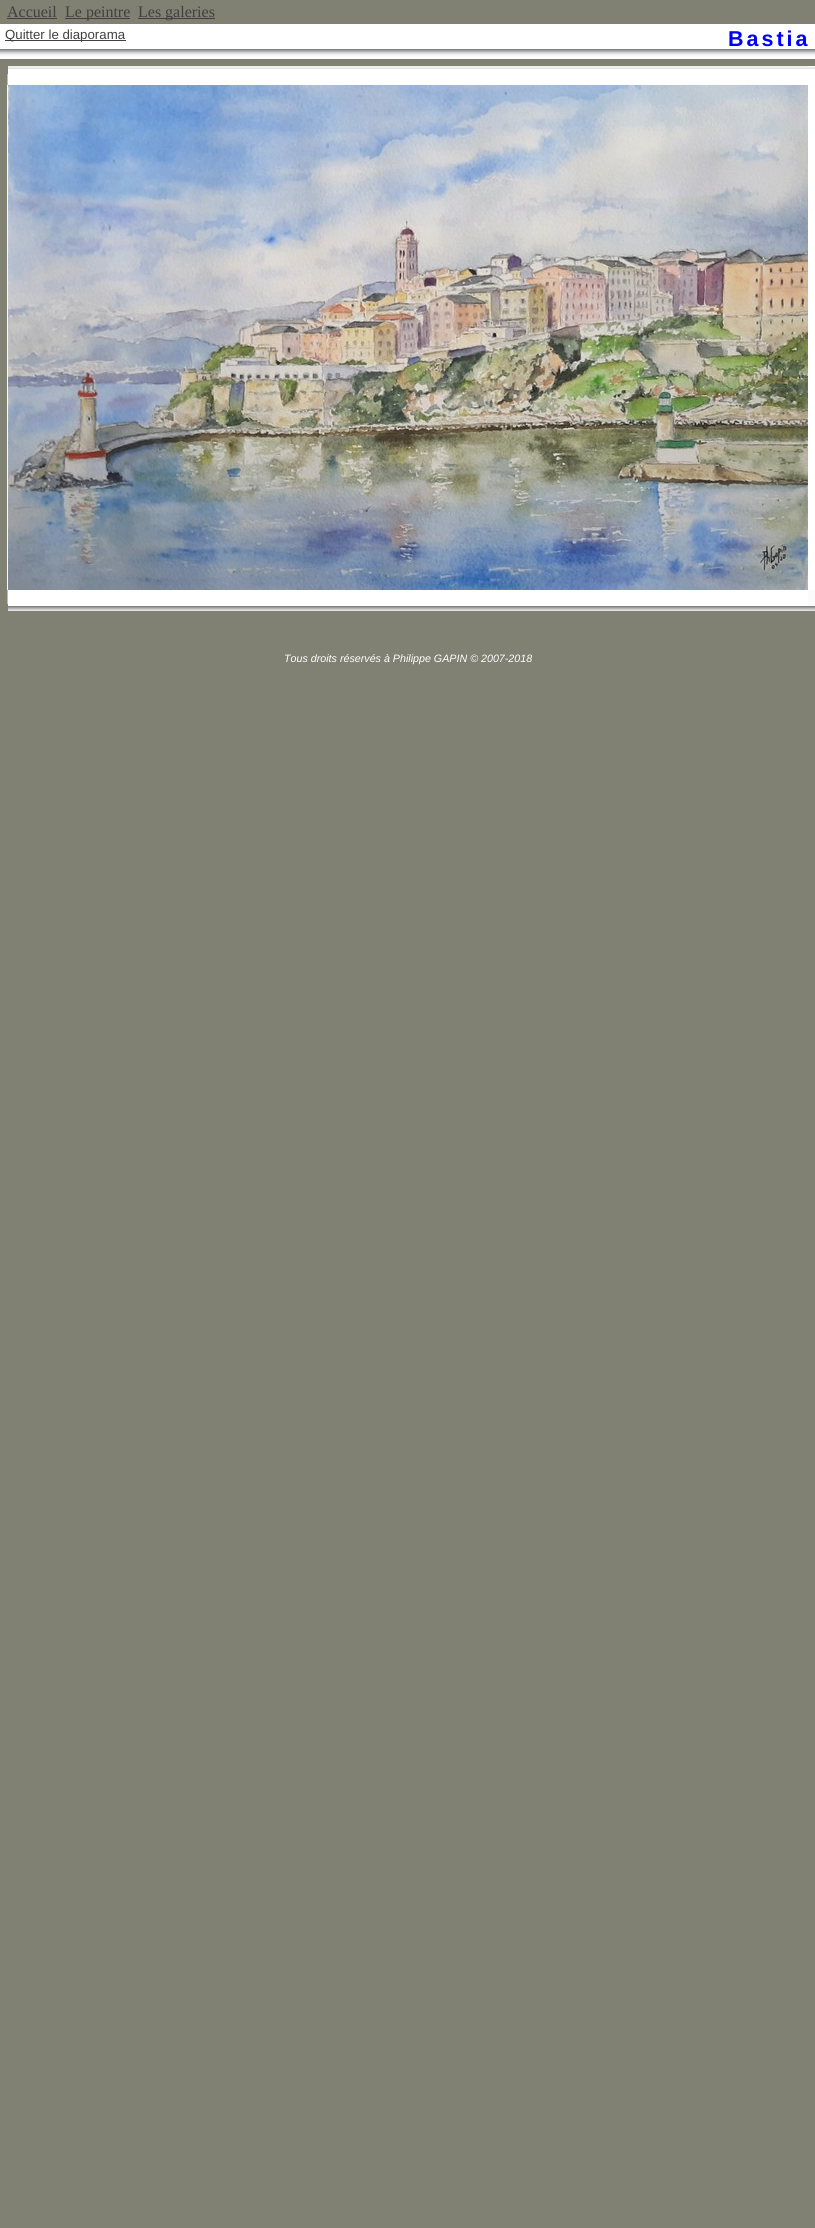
#include <cairo.h>
#include <math.h>
#include <stddef.h>


static void spaced_text(cairo_t *cr, double x, double y, const char *s, double letter, double word) {
    cairo_move_to(cr, x, y);
    while (*s) {
        char ch[5] = {0};
        int n = 0;
        do ch[n++] = *s++; while ((*s & 0xC0) == 0x80);
        cairo_show_text(cr, ch);
        cairo_rel_move_to(cr, letter + word * (*ch == ' '), 0);
    }
}

static void picture(cairo_t *cr, const char *path, double x, double y, double w, double h) {
    cairo_surface_t *image = cairo_image_surface_create_from_png(path);
    cairo_save(cr);
    cairo_set_source_surface(cr, image, x, y);
    cairo_rectangle(cr, x, y, w, h);
    cairo_fill(cr);
    cairo_restore(cr);
    cairo_surface_destroy(image);
}

int main(void) {
    cairo_surface_t *surface = cairo_image_surface_create(CAIRO_FORMAT_RGB24, 815, 2228);
    cairo_t *cr = cairo_create(surface);
    cairo_font_options_t *options = cairo_font_options_create();
    cairo_font_options_set_hint_metrics(options, CAIRO_HINT_METRICS_OFF);
    cairo_font_options_set_hint_style(options, CAIRO_HINT_STYLE_NONE);
    cairo_set_font_options(cr, options);
    cairo_set_miter_limit(cr, 4);
    cairo_set_source_rgb(cr, 0.502, 0.502, 0.451);
    cairo_paint(cr);
    cairo_select_font_face(cr, "Liberation Serif", CAIRO_FONT_SLANT_NORMAL, CAIRO_FONT_WEIGHT_NORMAL);
    cairo_set_font_size(cr, 16);
    cairo_set_source_rgb(cr, 0.251, 0.251, 0.251);
    cairo_move_to(cr, 7, 17);
    cairo_show_text(cr, "Accueil");
    cairo_rectangle(cr, 7, 18, 50, 1);
    cairo_fill(cr);
    cairo_rectangle(cr, 65, 18, 65, 1);
    cairo_fill(cr);
    cairo_move_to(cr, 65, 17);
    cairo_show_text(cr, "Le peintre");
    cairo_rectangle(cr, 138, 18, 77, 1);
    cairo_fill(cr);
    cairo_move_to(cr, 138, 17);
    cairo_show_text(cr, "Les galeries");
    picture(cr, "img1.png", 0, 24, 815, 35);
    cairo_rectangle(cr, 5, 40, 121, 1);
    cairo_fill(cr);
    cairo_select_font_face(cr, "Liberation Sans", CAIRO_FONT_SLANT_NORMAL, CAIRO_FONT_WEIGHT_NORMAL);
    cairo_set_font_size(cr, 13.25);
    cairo_move_to(cr, 5, 39);
    cairo_show_text(cr, "Quitter le diaporama");
    cairo_select_font_face(cr, "Liberation Sans", CAIRO_FONT_SLANT_NORMAL, CAIRO_FONT_WEIGHT_BOLD);
    cairo_set_font_size(cr, 21.5);
    cairo_set_source_rgb(cr, 0, 0, 1);
    spaced_text(cr, 728, 46, "Bastia", 3, 0);
    picture(cr, "img2.png", 7, 74, 1, 11);
    picture(cr, "img3.png", 8, 66, 800, 19);
    picture(cr, "img4.png", 808, 66, 7, 19);
    cairo_set_source_rgb(cr, 0.969, 0.969, 0.969);
    cairo_rectangle(cr, 7, 85, 1, 505);
    cairo_fill(cr);
    picture(cr, "img5.png", 8, 85, 800, 505);
    cairo_set_source_rgb(cr, 1, 1, 1);
    cairo_rectangle(cr, 808, 85, 7, 505);
    cairo_fill(cr);
    picture(cr, "img6.png", 7, 590, 1, 14);
    picture(cr, "img7.png", 8, 590, 800, 21);
    picture(cr, "img8.png", 808, 590, 7, 21);
    cairo_select_font_face(cr, "Liberation Sans", CAIRO_FONT_SLANT_ITALIC, CAIRO_FONT_WEIGHT_NORMAL);
    cairo_set_font_size(cr, 10.7);
    cairo_move_to(cr, 284, 662);
    cairo_show_text(cr, "Tous droits réservés à Philippe GAPIN © 2007-2018");
    cairo_surface_write_to_png(surface, "page.png");
    cairo_font_options_destroy(options);
    cairo_destroy(cr);
    cairo_surface_destroy(surface);
    return 0;
}
